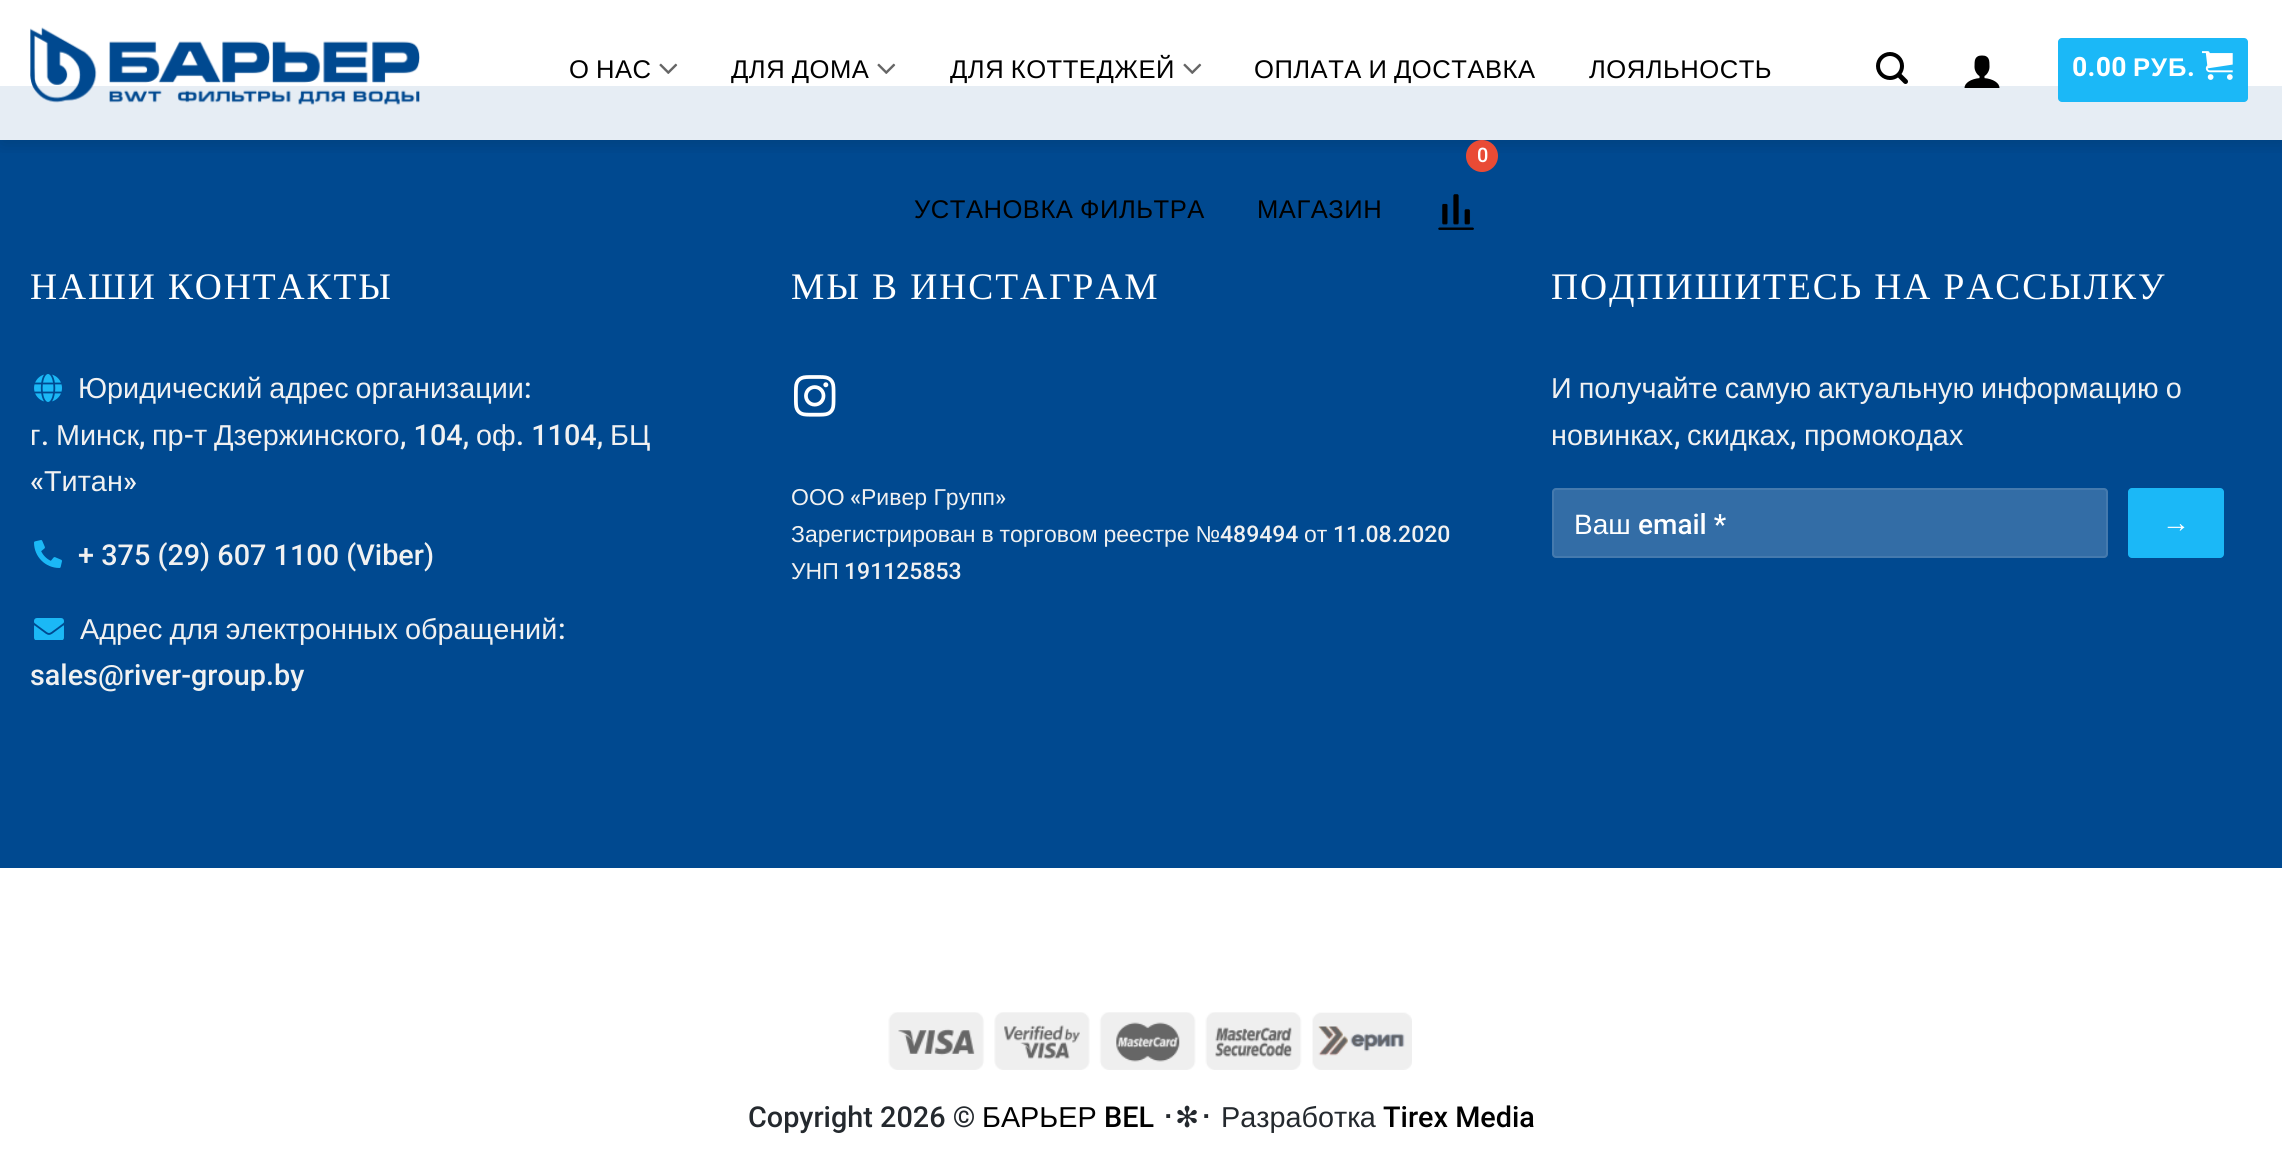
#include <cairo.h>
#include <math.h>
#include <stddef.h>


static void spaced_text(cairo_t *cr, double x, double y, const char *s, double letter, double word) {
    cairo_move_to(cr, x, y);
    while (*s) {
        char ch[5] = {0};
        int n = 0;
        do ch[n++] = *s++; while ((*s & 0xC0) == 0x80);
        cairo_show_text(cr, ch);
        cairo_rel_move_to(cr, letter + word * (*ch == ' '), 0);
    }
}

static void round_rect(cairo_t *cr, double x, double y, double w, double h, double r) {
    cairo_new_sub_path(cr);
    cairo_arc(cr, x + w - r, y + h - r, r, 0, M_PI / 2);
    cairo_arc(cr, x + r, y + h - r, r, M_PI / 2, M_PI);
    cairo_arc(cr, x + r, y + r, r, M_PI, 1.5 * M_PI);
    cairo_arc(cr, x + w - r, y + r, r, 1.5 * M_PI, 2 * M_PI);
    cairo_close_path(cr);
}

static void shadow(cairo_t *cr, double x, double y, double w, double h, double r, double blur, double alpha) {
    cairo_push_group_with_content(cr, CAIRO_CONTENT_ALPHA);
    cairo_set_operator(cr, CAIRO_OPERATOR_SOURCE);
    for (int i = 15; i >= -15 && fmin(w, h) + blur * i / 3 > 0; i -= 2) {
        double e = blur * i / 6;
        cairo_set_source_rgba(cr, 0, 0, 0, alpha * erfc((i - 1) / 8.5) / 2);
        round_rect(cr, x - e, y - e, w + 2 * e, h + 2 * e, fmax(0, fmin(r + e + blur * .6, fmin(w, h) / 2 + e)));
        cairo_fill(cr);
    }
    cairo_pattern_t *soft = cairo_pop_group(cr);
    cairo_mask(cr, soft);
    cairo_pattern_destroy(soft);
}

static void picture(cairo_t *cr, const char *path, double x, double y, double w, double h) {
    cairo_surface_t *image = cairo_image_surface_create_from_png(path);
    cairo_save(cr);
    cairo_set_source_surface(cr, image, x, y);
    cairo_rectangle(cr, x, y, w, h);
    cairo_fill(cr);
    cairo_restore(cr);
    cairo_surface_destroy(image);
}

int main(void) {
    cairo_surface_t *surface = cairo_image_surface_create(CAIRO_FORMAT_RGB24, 2282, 1161);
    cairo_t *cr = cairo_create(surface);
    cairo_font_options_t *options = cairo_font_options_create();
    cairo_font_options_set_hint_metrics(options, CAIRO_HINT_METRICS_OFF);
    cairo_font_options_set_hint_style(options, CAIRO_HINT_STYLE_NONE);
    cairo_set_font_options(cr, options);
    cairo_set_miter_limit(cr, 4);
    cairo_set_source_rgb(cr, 1, 1, 1);
    cairo_paint(cr);
    cairo_set_source_rgb(cr, 0, 0.286, 0.565);
    cairo_rectangle(cr, 0, 140, 2282, 728);
    cairo_fill(cr);
    cairo_set_source_rgb(cr, 0.902, 0.929, 0.957);
    cairo_rectangle(cr, 0, 86, 2282, 54);
    cairo_fill(cr);
    cairo_save(cr);
    cairo_rectangle(cr, 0, 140, 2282, 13);
    cairo_clip(cr);
    cairo_set_source_rgb(cr, 0, 0, 0);
    shadow(cr, 2, 2, 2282, 140, 0, 10, 0.15);
    cairo_restore(cr);
    picture(cr, "img1.png", 30, 27, 390, 78);
    cairo_select_font_face(cr, "Liberation Sans", CAIRO_FONT_SLANT_NORMAL, CAIRO_FONT_WEIGHT_NORMAL);
    cairo_set_font_size(cr, 25.6);
    cairo_set_source_rgb(cr, 0, 0, 0);
    spaced_text(cr, 569, 78, "О НАС", 0.5, -1);
    picture(cr, "img2.png", 659, 63, 19, 11);
    spaced_text(cr, 731, 78, "ДЛЯ ДОМА", 0.5, -1);
    picture(cr, "img2.png", 877, 63, 19, 11);
    spaced_text(cr, 950, 78, "ДЛЯ КОТТЕДЖЕЙ", 0.5, -1);
    picture(cr, "img2.png", 1183, 63, 19, 11);
    spaced_text(cr, 1254, 78, "ОПЛАТА И ДОСТАВКА", 0.5, -1);
    spaced_text(cr, 1589, 78, "ЛОЯЛЬНОСТЬ", 0.5, 0);
    cairo_set_source_rgb(cr, 0.914, 0.294, 0.208);
    cairo_new_path(cr);
    cairo_arc(cr, 1482, 156, 16, 0, 2 * M_PI);
    cairo_fill(cr);
    cairo_select_font_face(cr, "Roboto Medium", CAIRO_FONT_SLANT_NORMAL, CAIRO_FONT_WEIGHT_NORMAL);
    cairo_set_font_size(cr, 20);
    cairo_set_source_rgb(cr, 1, 1, 1);
    spaced_text(cr, 1477, 162, "0", 0.5, 0);
    picture(cr, "img3.png", 1438, 194, 36, 36);
    cairo_select_font_face(cr, "Liberation Sans", CAIRO_FONT_SLANT_NORMAL, CAIRO_FONT_WEIGHT_NORMAL);
    cairo_set_font_size(cr, 25.6);
    cairo_set_source_rgb(cr, 0, 0, 0);
    spaced_text(cr, 914, 218, "УСТАНОВКА ФИЛЬТРА", 0.5, -1);
    spaced_text(cr, 1257, 218, "МАГАЗИН", 0.5, 0);
    picture(cr, "img4.png", 1876, 52, 32, 32);
    picture(cr, "img5.png", 1964, 55, 36, 33);
    cairo_set_source_rgb(cr, 0.106, 0.722, 0.965);
    round_rect(cr, 2058, 38, 190, 64, 4);
    cairo_fill(cr);
    cairo_select_font_face(cr, "Roboto", CAIRO_FONT_SLANT_NORMAL, CAIRO_FONT_WEIGHT_BOLD);
    cairo_set_source_rgb(cr, 1, 1, 1);
    spaced_text(cr, 2072, 76, "0.00", 1, 0);
    cairo_select_font_face(cr, "Liberation Sans", CAIRO_FONT_SLANT_NORMAL, CAIRO_FONT_WEIGHT_BOLD);
    spaced_text(cr, 2133, 76, "РУБ", 1, 0);
    cairo_select_font_face(cr, "Roboto", CAIRO_FONT_SLANT_NORMAL, CAIRO_FONT_WEIGHT_BOLD);
    spaced_text(cr, 2187, 76, ".", 1, 0);
    picture(cr, "img6.png", 2202, 51, 31, 29);
    cairo_select_font_face(cr, "Liberation Serif", CAIRO_FONT_SLANT_NORMAL, CAIRO_FONT_WEIGHT_NORMAL);
    cairo_set_font_size(cr, 37.5);
    spaced_text(cr, 30, 299, "НАШИ КОНТАКТЫ", 1.9, 0);
    picture(cr, "img7.png", 34, 374, 28, 28);
    cairo_select_font_face(cr, "Liberation Sans", CAIRO_FONT_SLANT_NORMAL, CAIRO_FONT_WEIGHT_NORMAL);
    cairo_set_font_size(cr, 28.8);
    cairo_set_source_rgb(cr, 0.945, 0.945, 0.945);
    spaced_text(cr, 78, 398, "Юридический адрес организации", 0, -1);
    cairo_select_font_face(cr, "Roboto Medium", CAIRO_FONT_SLANT_NORMAL, CAIRO_FONT_WEIGHT_NORMAL);
    cairo_move_to(cr, 524, 398);
    cairo_show_text(cr, ":");
    cairo_select_font_face(cr, "Liberation Sans", CAIRO_FONT_SLANT_NORMAL, CAIRO_FONT_WEIGHT_NORMAL);
    cairo_move_to(cr, 30, 445);
    cairo_show_text(cr, "г");
    cairo_move_to(cr, 56, 445);
    cairo_show_text(cr, "Минск");
    cairo_move_to(cr, 152, 445);
    cairo_show_text(cr, "пр");
    cairo_select_font_face(cr, "Roboto Medium", CAIRO_FONT_SLANT_NORMAL, CAIRO_FONT_WEIGHT_NORMAL);
    cairo_move_to(cr, 184, 445);
    cairo_show_text(cr, "-");
    cairo_select_font_face(cr, "Liberation Sans", CAIRO_FONT_SLANT_NORMAL, CAIRO_FONT_WEIGHT_NORMAL);
    cairo_move_to(cr, 194, 445);
    cairo_show_text(cr, "т");
    cairo_move_to(cr, 214, 445);
    cairo_show_text(cr, "Дзержинского");
    cairo_select_font_face(cr, "Roboto Medium", CAIRO_FONT_SLANT_NORMAL, CAIRO_FONT_WEIGHT_NORMAL);
    cairo_move_to(cr, 400, 445);
    cairo_show_text(cr, ", 104,");
    cairo_select_font_face(cr, "Liberation Sans", CAIRO_FONT_SLANT_NORMAL, CAIRO_FONT_WEIGHT_NORMAL);
    cairo_move_to(cr, 476, 445);
    cairo_show_text(cr, "оф");
    cairo_select_font_face(cr, "Roboto Medium", CAIRO_FONT_SLANT_NORMAL, CAIRO_FONT_WEIGHT_NORMAL);
    cairo_move_to(cr, 516, 445);
    cairo_show_text(cr, ". 1104,");
    cairo_select_font_face(cr, "Liberation Sans", CAIRO_FONT_SLANT_NORMAL, CAIRO_FONT_WEIGHT_NORMAL);
    cairo_move_to(cr, 610, 445);
    cairo_show_text(cr, "БЦ");
    cairo_select_font_face(cr, "Roboto Medium", CAIRO_FONT_SLANT_NORMAL, CAIRO_FONT_WEIGHT_NORMAL);
    cairo_move_to(cr, 41, 445);
    cairo_show_text(cr, ".");
    cairo_move_to(cr, 139, 445);
    cairo_show_text(cr, ",");
    cairo_move_to(cr, 30, 491);
    cairo_show_text(cr, "«");
    cairo_select_font_face(cr, "Liberation Sans", CAIRO_FONT_SLANT_NORMAL, CAIRO_FONT_WEIGHT_NORMAL);
    cairo_move_to(cr, 44, 491);
    cairo_show_text(cr, "Титан");
    cairo_select_font_face(cr, "Roboto Medium", CAIRO_FONT_SLANT_NORMAL, CAIRO_FONT_WEIGHT_NORMAL);
    cairo_move_to(cr, 123, 491);
    cairo_show_text(cr, "»");
    picture(cr, "img8.png", 34, 540, 28, 28);
    cairo_move_to(cr, 78, 565);
    cairo_show_text(cr, "+ 375 (29) 607 1100 (Viber)");
    picture(cr, "img9.png", 34, 618, 30, 22);
    cairo_select_font_face(cr, "Liberation Sans", CAIRO_FONT_SLANT_NORMAL, CAIRO_FONT_WEIGHT_NORMAL);
    spaced_text(cr, 80, 639, "Адрес для электронных обращений", 0, -1);
    cairo_select_font_face(cr, "Roboto Medium", CAIRO_FONT_SLANT_NORMAL, CAIRO_FONT_WEIGHT_NORMAL);
    cairo_move_to(cr, 558, 639);
    cairo_show_text(cr, ":");
    cairo_move_to(cr, 30, 685);
    cairo_show_text(cr, "sales@river-group.by");
    cairo_select_font_face(cr, "Liberation Serif", CAIRO_FONT_SLANT_NORMAL, CAIRO_FONT_WEIGHT_NORMAL);
    cairo_set_font_size(cr, 37.5);
    cairo_set_source_rgb(cr, 1, 1, 1);
    spaced_text(cr, 791, 299, "МЫ В ИНСТАГРАМ", 1.9, 0);
    picture(cr, "img10.png", 794, 375, 42, 42);
    cairo_select_font_face(cr, "Liberation Sans", CAIRO_FONT_SLANT_NORMAL, CAIRO_FONT_WEIGHT_NORMAL);
    cairo_set_font_size(cr, 23);
    cairo_set_source_rgb(cr, 0.945, 0.945, 0.945);
    cairo_move_to(cr, 791, 505);
    cairo_show_text(cr, "ООО");
    cairo_select_font_face(cr, "Roboto Medium", CAIRO_FONT_SLANT_NORMAL, CAIRO_FONT_WEIGHT_NORMAL);
    cairo_move_to(cr, 850, 505);
    cairo_show_text(cr, "«");
    cairo_select_font_face(cr, "Liberation Sans", CAIRO_FONT_SLANT_NORMAL, CAIRO_FONT_WEIGHT_NORMAL);
    cairo_move_to(cr, 861, 505);
    cairo_show_text(cr, "Ривер Групп");
    cairo_select_font_face(cr, "Roboto Medium", CAIRO_FONT_SLANT_NORMAL, CAIRO_FONT_WEIGHT_NORMAL);
    cairo_move_to(cr, 995, 505);
    cairo_show_text(cr, "»");
    cairo_select_font_face(cr, "Liberation Sans", CAIRO_FONT_SLANT_NORMAL, CAIRO_FONT_WEIGHT_NORMAL);
    spaced_text(cr, 791, 542, "Зарегистрирован в торговом реестре №", 0, -0.5);
    cairo_select_font_face(cr, "Roboto Medium", CAIRO_FONT_SLANT_NORMAL, CAIRO_FONT_WEIGHT_NORMAL);
    cairo_move_to(cr, 1220, 542);
    cairo_show_text(cr, "489494");
    cairo_select_font_face(cr, "Liberation Sans", CAIRO_FONT_SLANT_NORMAL, CAIRO_FONT_WEIGHT_NORMAL);
    cairo_move_to(cr, 1304, 542);
    cairo_show_text(cr, "от");
    cairo_select_font_face(cr, "Roboto Medium", CAIRO_FONT_SLANT_NORMAL, CAIRO_FONT_WEIGHT_NORMAL);
    cairo_move_to(cr, 1333, 542);
    cairo_show_text(cr, "11.08.2020");
    cairo_select_font_face(cr, "Liberation Sans", CAIRO_FONT_SLANT_NORMAL, CAIRO_FONT_WEIGHT_NORMAL);
    cairo_move_to(cr, 791, 579);
    cairo_show_text(cr, "УНП");
    cairo_select_font_face(cr, "Roboto Medium", CAIRO_FONT_SLANT_NORMAL, CAIRO_FONT_WEIGHT_NORMAL);
    cairo_move_to(cr, 844, 579);
    cairo_show_text(cr, "191125853");
    cairo_select_font_face(cr, "Liberation Serif", CAIRO_FONT_SLANT_NORMAL, CAIRO_FONT_WEIGHT_NORMAL);
    cairo_set_font_size(cr, 37.5);
    cairo_set_source_rgb(cr, 1, 1, 1);
    spaced_text(cr, 1551, 299, "ПОДПИШИТЕСЬ НА РАССЫЛКУ", 1.9, 0);
    cairo_select_font_face(cr, "Liberation Sans", CAIRO_FONT_SLANT_NORMAL, CAIRO_FONT_WEIGHT_NORMAL);
    cairo_set_font_size(cr, 28.8);
    cairo_set_source_rgb(cr, 0.945, 0.945, 0.945);
    spaced_text(cr, 1551, 398, "И получайте самую актуальную информацию о", 0, -1);
    cairo_move_to(cr, 1551, 445);
    cairo_show_text(cr, "новинках");
    cairo_select_font_face(cr, "Roboto Medium", CAIRO_FONT_SLANT_NORMAL, CAIRO_FONT_WEIGHT_NORMAL);
    cairo_move_to(cr, 1674, 445);
    cairo_show_text(cr, ",");
    cairo_select_font_face(cr, "Liberation Sans", CAIRO_FONT_SLANT_NORMAL, CAIRO_FONT_WEIGHT_NORMAL);
    cairo_move_to(cr, 1687, 445);
    cairo_show_text(cr, "скидках");
    cairo_select_font_face(cr, "Roboto Medium", CAIRO_FONT_SLANT_NORMAL, CAIRO_FONT_WEIGHT_NORMAL);
    cairo_move_to(cr, 1790, 445);
    cairo_show_text(cr, ",");
    cairo_select_font_face(cr, "Liberation Sans", CAIRO_FONT_SLANT_NORMAL, CAIRO_FONT_WEIGHT_NORMAL);
    cairo_move_to(cr, 1804, 445);
    cairo_show_text(cr, "промокодах");
    cairo_set_source_rgb(cr, 0.2, 0.427, 0.651);
    round_rect(cr, 1552, 488, 556, 70, 4);
    cairo_fill(cr);
    round_rect(cr, 1553, 489, 554, 68, 3);
    cairo_set_source_rgba(cr, 1, 1, 1, 0.09);
    cairo_stroke(cr);
    cairo_set_font_size(cr, 28);
    cairo_set_source_rgb(cr, 1, 1, 1);
    cairo_move_to(cr, 1574, 534);
    cairo_show_text(cr, "Ваш");
    cairo_select_font_face(cr, "Roboto Medium", CAIRO_FONT_SLANT_NORMAL, CAIRO_FONT_WEIGHT_NORMAL);
    cairo_move_to(cr, 1638, 534);
    cairo_show_text(cr, "email *");
    cairo_set_source_rgb(cr, 0.106, 0.722, 0.965);
    round_rect(cr, 2128, 488, 96, 70, 4);
    cairo_fill(cr);
    cairo_select_font_face(cr, "Liberation Sans", CAIRO_FONT_SLANT_NORMAL, CAIRO_FONT_WEIGHT_NORMAL);
    cairo_set_source_rgb(cr, 1, 1, 1);
    spaced_text(cr, 2162, 532, "→", 1, 0);
    picture(cr, "img11.png", 888, 1012, 524, 58);
    cairo_select_font_face(cr, "Roboto Medium", CAIRO_FONT_SLANT_NORMAL, CAIRO_FONT_WEIGHT_NORMAL);
    cairo_set_font_size(cr, 28.8);
    cairo_set_source_rgb(cr, 0.141, 0.161, 0.18);
    cairo_move_to(cr, 748, 1127);
    cairo_show_text(cr, "Copyright 2026 ©");
    cairo_select_font_face(cr, "Liberation Sans", CAIRO_FONT_SLANT_NORMAL, CAIRO_FONT_WEIGHT_NORMAL);
    cairo_set_source_rgb(cr, 0, 0, 0);
    cairo_move_to(cr, 982, 1127);
    cairo_show_text(cr, "БАРЬЕР");
    cairo_select_font_face(cr, "Roboto Medium", CAIRO_FONT_SLANT_NORMAL, CAIRO_FONT_WEIGHT_NORMAL);
    cairo_move_to(cr, 1104, 1127);
    cairo_show_text(cr, "BEL");
    cairo_select_font_face(cr, "IPAGothic", CAIRO_FONT_SLANT_NORMAL, CAIRO_FONT_WEIGHT_NORMAL);
    cairo_set_source_rgb(cr, 0.141, 0.161, 0.18);
    cairo_move_to(cr, 1161, 1127);
    cairo_show_text(cr, "･");
    cairo_select_font_face(cr, "DejaVu Sans", CAIRO_FONT_SLANT_NORMAL, CAIRO_FONT_WEIGHT_NORMAL);
    cairo_move_to(cr, 1175, 1127);
    cairo_show_text(cr, "✻");
    cairo_select_font_face(cr, "IPAGothic", CAIRO_FONT_SLANT_NORMAL, CAIRO_FONT_WEIGHT_NORMAL);
    cairo_move_to(cr, 1199, 1127);
    cairo_show_text(cr, "･");
    cairo_select_font_face(cr, "Liberation Sans", CAIRO_FONT_SLANT_NORMAL, CAIRO_FONT_WEIGHT_NORMAL);
    cairo_move_to(cr, 1221, 1127);
    cairo_show_text(cr, "Разработка");
    cairo_select_font_face(cr, "Roboto Medium", CAIRO_FONT_SLANT_NORMAL, CAIRO_FONT_WEIGHT_NORMAL);
    cairo_set_source_rgb(cr, 0, 0, 0);
    cairo_move_to(cr, 1383, 1127);
    cairo_show_text(cr, "Tirex Media");
    cairo_surface_write_to_png(surface, "page.png");
    cairo_font_options_destroy(options);
    cairo_destroy(cr);
    cairo_surface_destroy(surface);
    return 0;
}
